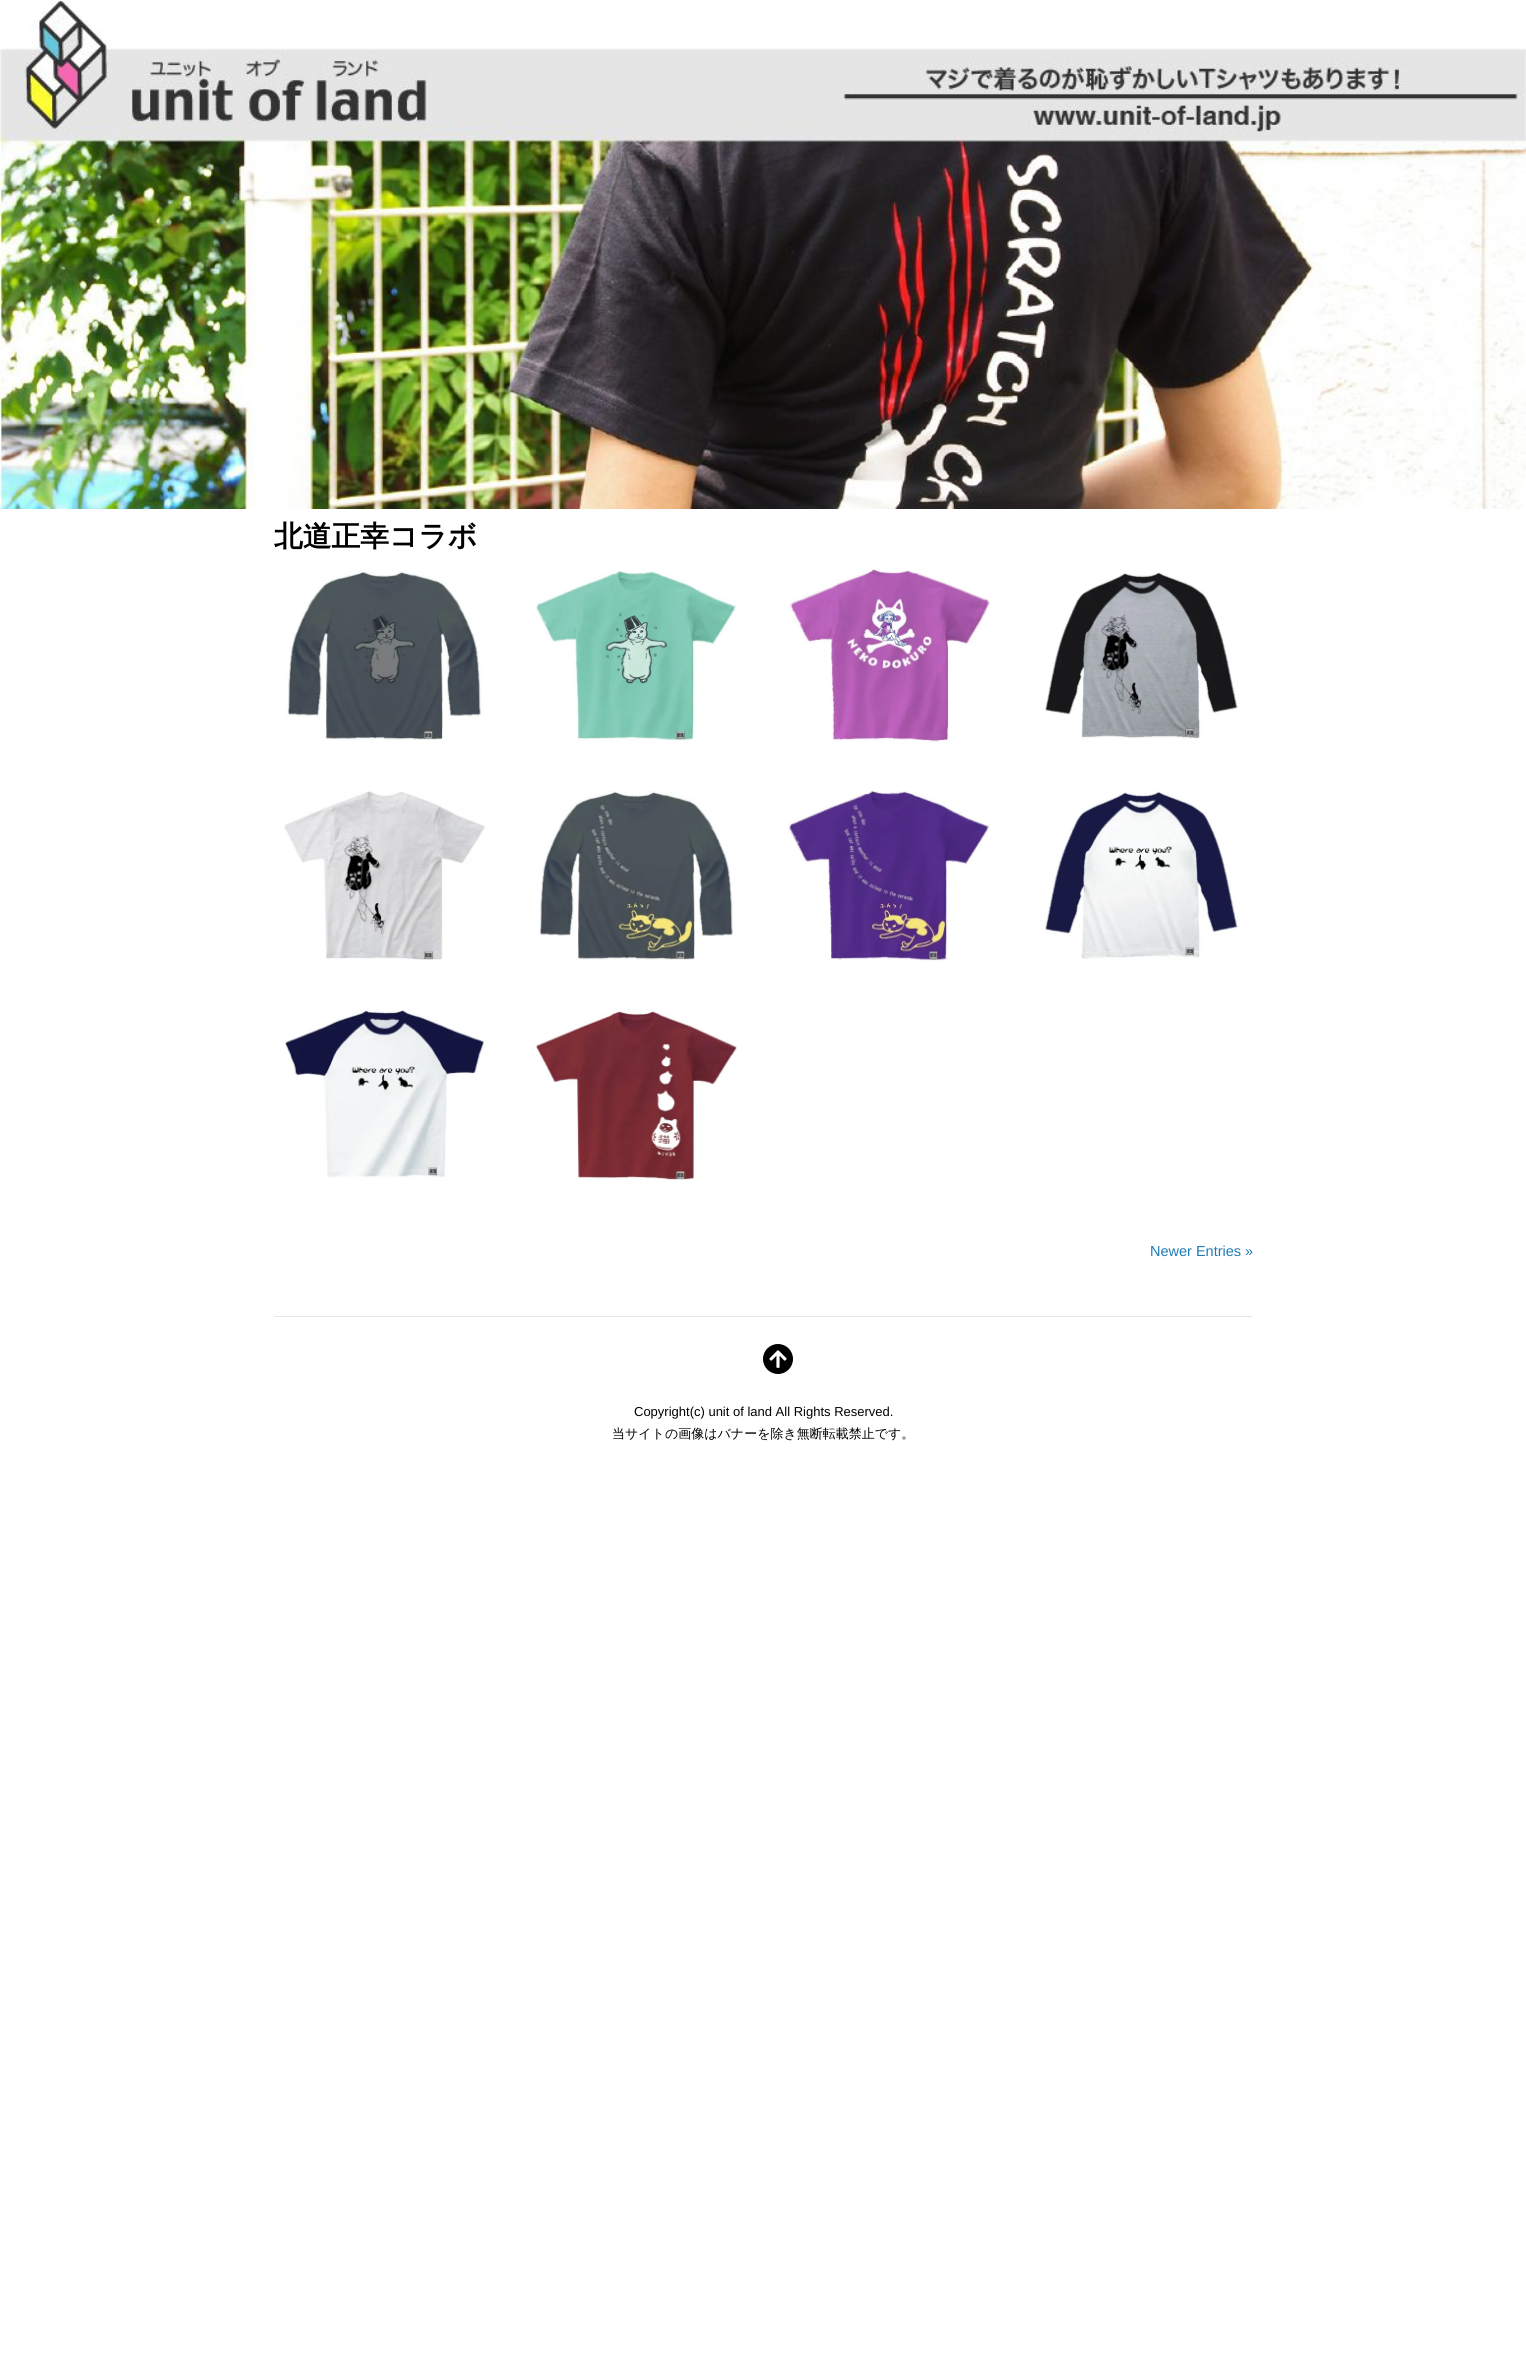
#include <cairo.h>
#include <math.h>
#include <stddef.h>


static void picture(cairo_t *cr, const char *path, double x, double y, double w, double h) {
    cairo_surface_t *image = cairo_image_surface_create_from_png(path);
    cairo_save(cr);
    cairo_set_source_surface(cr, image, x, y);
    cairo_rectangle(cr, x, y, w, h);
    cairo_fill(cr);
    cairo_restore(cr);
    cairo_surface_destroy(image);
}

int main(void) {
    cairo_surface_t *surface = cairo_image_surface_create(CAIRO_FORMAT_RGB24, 1526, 2366);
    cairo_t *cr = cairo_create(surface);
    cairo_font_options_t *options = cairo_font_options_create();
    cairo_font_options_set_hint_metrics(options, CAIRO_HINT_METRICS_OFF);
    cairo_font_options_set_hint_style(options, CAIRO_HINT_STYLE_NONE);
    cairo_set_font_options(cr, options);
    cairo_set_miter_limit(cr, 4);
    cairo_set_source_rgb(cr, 1, 1, 1);
    cairo_paint(cr);
    picture(cr, "img1.png", 0, 0, 1526, 509);
    cairo_select_font_face(cr, "WenQuanYi Zen Hei", CAIRO_FONT_SLANT_NORMAL, CAIRO_FONT_WEIGHT_BOLD);
    cairo_set_font_size(cr, 28.75);
    cairo_set_source_rgb(cr, 0, 0, 0);
    cairo_move_to(cr, 274, 546);
    cairo_show_text(cr, "北道正幸コラボ");
    picture(cr, "img2.png", 286, 571, 198, 169);
    picture(cr, "img3.png", 534, 571, 203, 170);
    picture(cr, "img4.png", 789, 567, 201, 177);
    picture(cr, "img5.png", 1045, 572, 193, 167);
    picture(cr, "img6.png", 284, 791, 201, 169);
    picture(cr, "img7.png", 539, 791, 194, 169);
    picture(cr, "img8.png", 787, 791, 203, 170);
    picture(cr, "img9.png", 1045, 791, 193, 169);
    picture(cr, "img10.png", 284, 1010, 201, 168);
    picture(cr, "img11.png", 534, 1011, 203, 171);
    cairo_select_font_face(cr, "Liberation Sans", CAIRO_FONT_SLANT_NORMAL, CAIRO_FONT_WEIGHT_NORMAL);
    cairo_set_font_size(cr, 14.5);
    cairo_set_source_rgb(cr, 0.122, 0.482, 0.714);
    cairo_move_to(cr, 1150, 1256);
    cairo_show_text(cr, "Newer Entries »");
    cairo_set_source_rgb(cr, 0.902, 0.902, 0.902);
    cairo_rectangle(cr, 274, 1316, 978, 1);
    cairo_fill(cr);
    cairo_set_source_rgb(cr, 0, 0, 0);
    cairo_arc(cr, 778, 1359, 15, 0, 2 * M_PI);
    cairo_fill(cr);
    picture(cr, "img12.png", 769, 1350, 18, 18);
    cairo_set_font_size(cr, 13);
    cairo_move_to(cr, 634, 1416);
    cairo_show_text(cr, "Copyright(c) unit of land All Rights Reserved.");
    cairo_select_font_face(cr, "WenQuanYi Zen Hei Medium", CAIRO_FONT_SLANT_NORMAL, CAIRO_FONT_WEIGHT_NORMAL);
    cairo_move_to(cr, 612, 1438);
    cairo_show_text(cr, "当サイトの画像はバナーを除き無断転載禁止です。");
    cairo_surface_write_to_png(surface, "page.png");
    cairo_font_options_destroy(options);
    cairo_destroy(cr);
    cairo_surface_destroy(surface);
    return 0;
}
